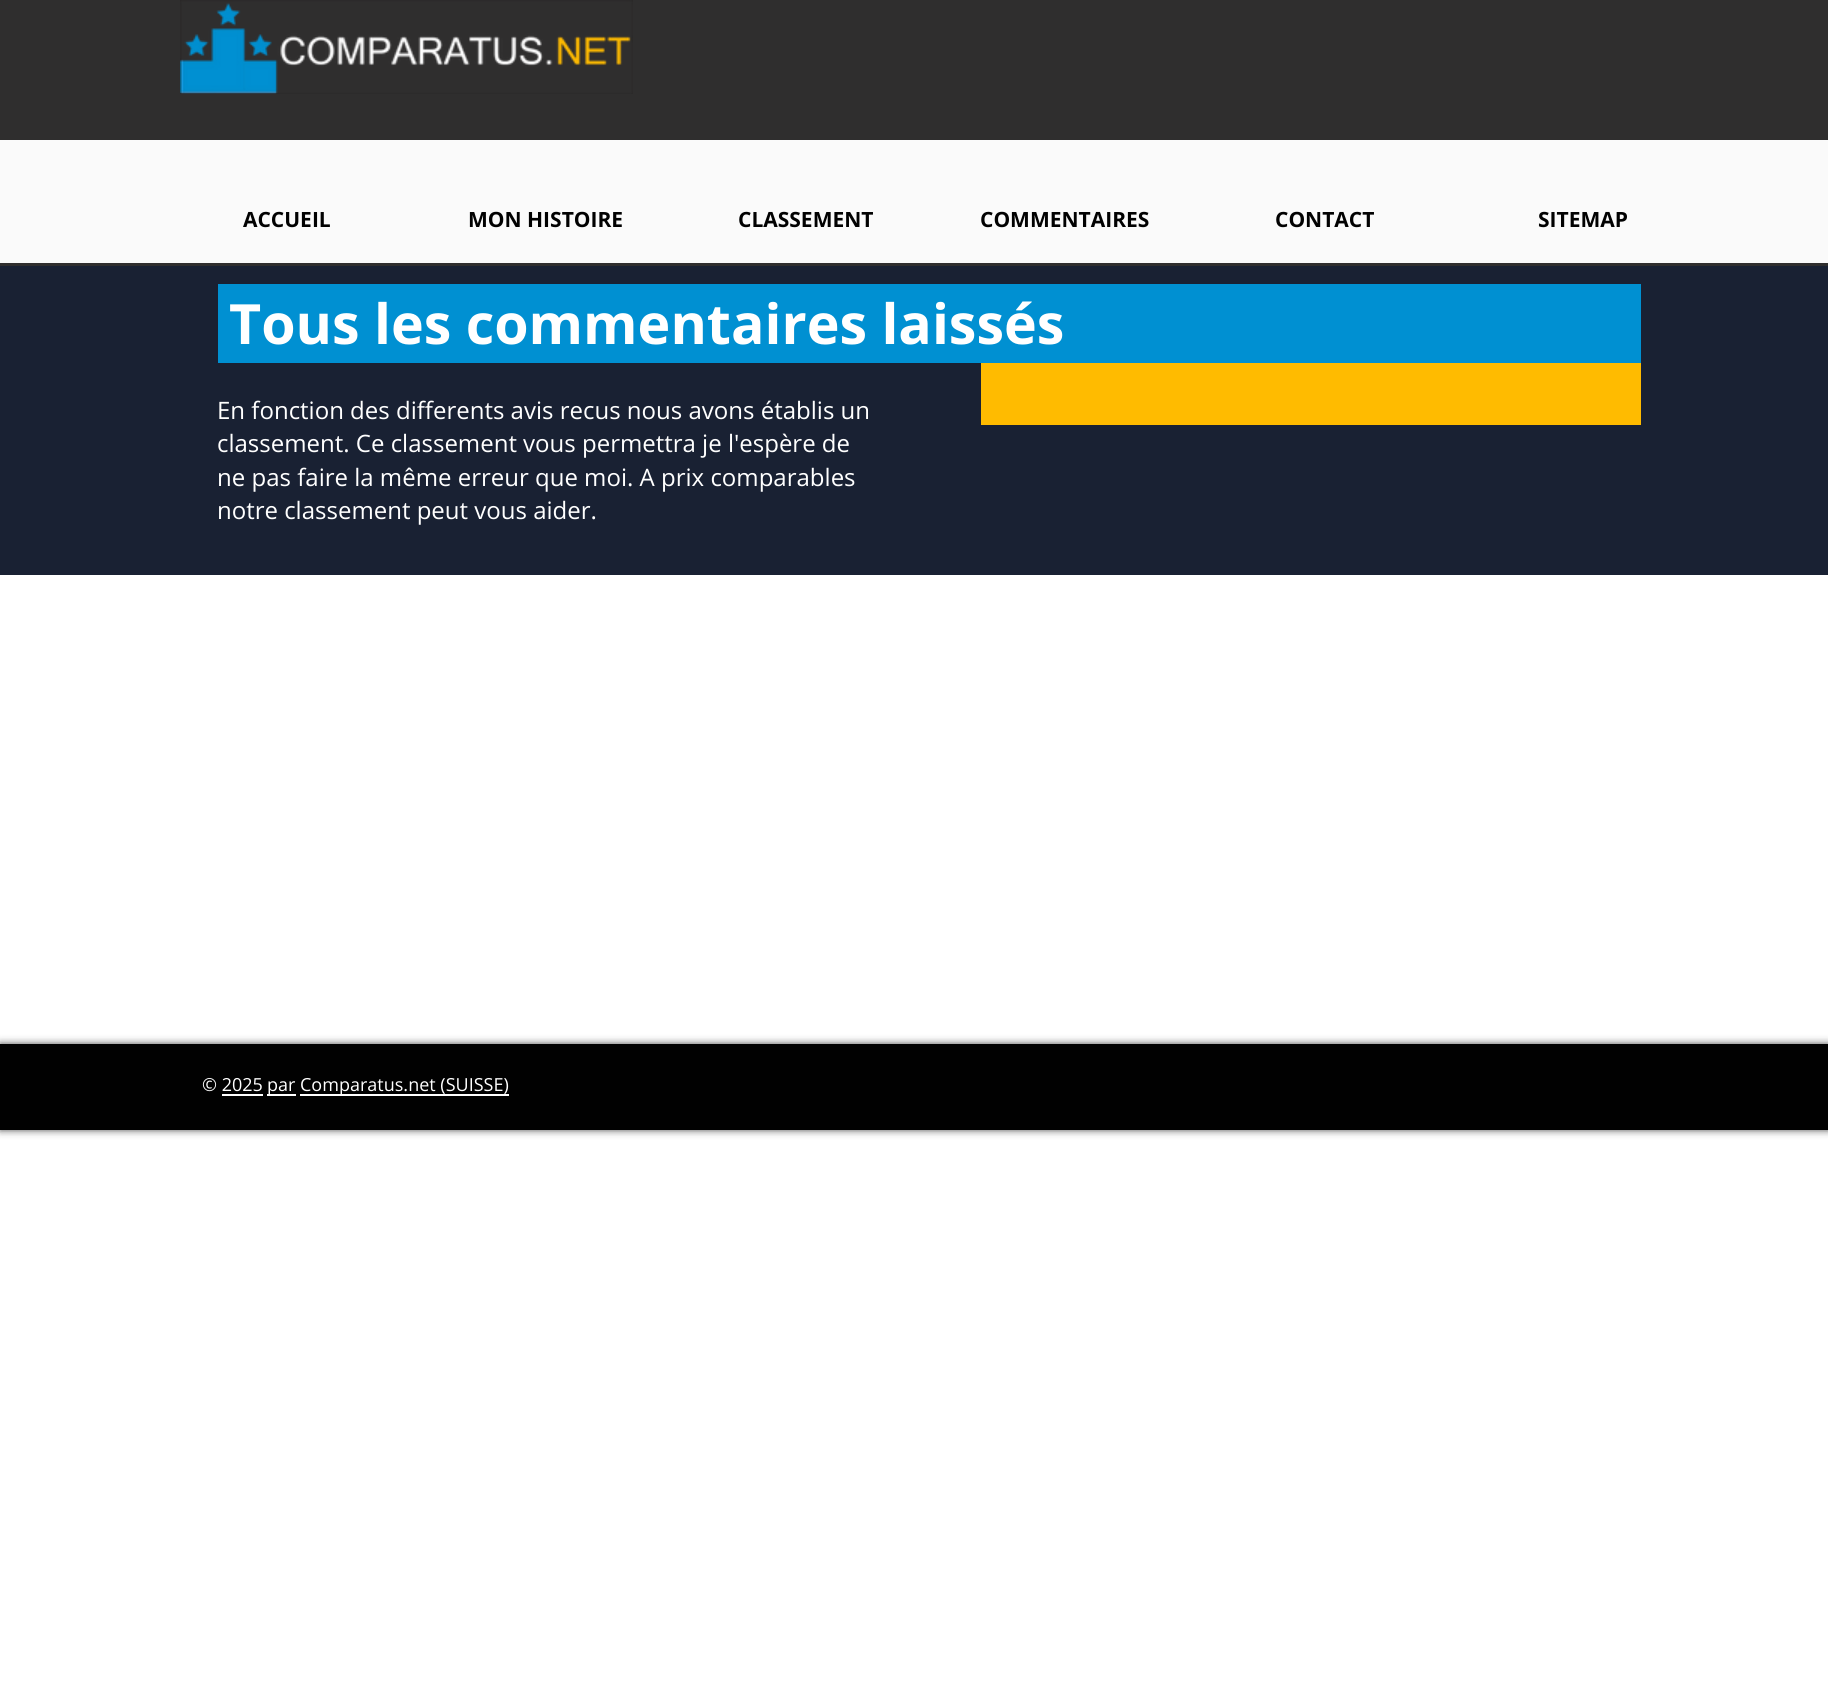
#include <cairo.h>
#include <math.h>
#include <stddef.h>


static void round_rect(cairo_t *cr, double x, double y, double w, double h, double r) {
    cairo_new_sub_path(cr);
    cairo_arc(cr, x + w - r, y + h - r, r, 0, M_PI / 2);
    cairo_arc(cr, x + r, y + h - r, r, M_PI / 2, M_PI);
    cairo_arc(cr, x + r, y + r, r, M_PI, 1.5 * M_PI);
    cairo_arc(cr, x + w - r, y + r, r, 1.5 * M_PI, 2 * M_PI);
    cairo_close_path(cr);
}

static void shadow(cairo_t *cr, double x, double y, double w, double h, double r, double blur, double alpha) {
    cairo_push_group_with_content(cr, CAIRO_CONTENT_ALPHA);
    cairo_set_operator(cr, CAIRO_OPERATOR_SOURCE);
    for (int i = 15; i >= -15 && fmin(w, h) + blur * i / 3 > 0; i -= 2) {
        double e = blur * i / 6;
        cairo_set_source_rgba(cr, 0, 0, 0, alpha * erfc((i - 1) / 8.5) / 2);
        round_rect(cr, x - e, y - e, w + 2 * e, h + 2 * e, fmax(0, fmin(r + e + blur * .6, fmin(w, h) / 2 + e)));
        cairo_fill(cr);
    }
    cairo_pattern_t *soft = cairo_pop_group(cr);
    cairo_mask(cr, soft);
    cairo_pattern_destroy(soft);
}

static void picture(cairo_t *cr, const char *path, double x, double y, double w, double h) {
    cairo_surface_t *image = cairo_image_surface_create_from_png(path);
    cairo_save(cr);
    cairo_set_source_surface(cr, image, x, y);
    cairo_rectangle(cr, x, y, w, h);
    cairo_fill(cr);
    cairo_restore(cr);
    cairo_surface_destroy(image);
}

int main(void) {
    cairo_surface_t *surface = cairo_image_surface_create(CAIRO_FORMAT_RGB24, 1828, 1692);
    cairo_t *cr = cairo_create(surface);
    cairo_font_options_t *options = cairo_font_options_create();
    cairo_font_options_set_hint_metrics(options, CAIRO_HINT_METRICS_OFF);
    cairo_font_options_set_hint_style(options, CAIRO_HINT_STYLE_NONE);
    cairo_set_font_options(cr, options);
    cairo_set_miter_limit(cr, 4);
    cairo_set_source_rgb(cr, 1, 1, 1);
    cairo_paint(cr);
    cairo_set_source_rgb(cr, 0.184, 0.18, 0.18);
    cairo_rectangle(cr, 0, 0, 1828, 266);
    cairo_fill(cr);
    picture(cr, "img1.png", 180, 0, 453, 94);
    cairo_set_source_rgb(cr, 0.98, 0.98, 0.98);
    cairo_rectangle(cr, 0, 140, 1828, 123);
    cairo_fill(cr);
    cairo_select_font_face(cr, "Open Sans", CAIRO_FONT_SLANT_NORMAL, CAIRO_FONT_WEIGHT_BOLD);
    cairo_set_font_size(cr, 21);
    cairo_set_source_rgb(cr, 0.004, 0.004, 0.004);
    cairo_move_to(cr, 243, 227);
    cairo_show_text(cr, "ACCUEIL");
    cairo_move_to(cr, 468, 227);
    cairo_show_text(cr, "MON HISTOIRE");
    cairo_move_to(cr, 738, 227);
    cairo_show_text(cr, "CLASSEMENT");
    cairo_move_to(cr, 980, 227);
    cairo_show_text(cr, "COMMENTAIRES");
    cairo_move_to(cr, 1275, 227);
    cairo_show_text(cr, "CONTACT");
    cairo_move_to(cr, 1538, 227);
    cairo_show_text(cr, "SITEMAP");
    cairo_set_source_rgb(cr, 0.098, 0.129, 0.2);
    cairo_rectangle(cr, 0, 266, 1828, 309);
    cairo_fill(cr);
    cairo_set_source_rgb(cr, 0, 0.565, 0.824);
    cairo_rectangle(cr, 218, 284, 1423, 79);
    cairo_fill(cr);
    cairo_set_font_size(cr, 55.5);
    cairo_set_source_rgb(cr, 1, 1, 1);
    cairo_move_to(cr, 229, 344);
    cairo_show_text(cr, "Tous les commentaires laissés");
    cairo_select_font_face(cr, "Open Sans", CAIRO_FONT_SLANT_NORMAL, CAIRO_FONT_WEIGHT_NORMAL);
    cairo_set_font_size(cr, 24);
    cairo_move_to(cr, 217, 419);
    cairo_show_text(cr, "En fonction des differents avis recus nous avons établis un");
    cairo_move_to(cr, 217, 452);
    cairo_show_text(cr, "classement. Ce classement vous permettra je l'espère de");
    cairo_move_to(cr, 217, 486);
    cairo_show_text(cr, "ne pas faire la même erreur que moi. A prix comparables");
    cairo_move_to(cr, 217, 519);
    cairo_show_text(cr, "notre classement peut vous aider.");
    cairo_set_source_rgb(cr, 1, 0.733, 0);
    cairo_rectangle(cr, 981, 363, 660, 62);
    cairo_fill(cr);
    cairo_set_source_rgb(cr, 0, 0, 0);
    shadow(cr, 0, 1044, 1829, 86, 0, 4, 0.7);
    cairo_set_source_rgb(cr, 0.004, 0.004, 0.004);
    cairo_rectangle(cr, 0, 1044, 1828, 86);
    cairo_fill(cr);
    cairo_set_font_size(cr, 18);
    cairo_set_source_rgb(cr, 1, 1, 1);
    cairo_move_to(cr, 202, 1091);
    cairo_show_text(cr, "© 2025");
    cairo_rectangle(cr, 267, 1094, 29, 2);
    cairo_fill(cr);
    cairo_move_to(cr, 267, 1091);
    cairo_show_text(cr, "par");
    cairo_rectangle(cr, 222, 1094, 41, 2);
    cairo_fill(cr);
    cairo_rectangle(cr, 300, 1094, 209, 2);
    cairo_fill(cr);
    cairo_move_to(cr, 300, 1091);
    cairo_show_text(cr, "Comparatus.net (SUISSE)");
    cairo_surface_write_to_png(surface, "page.png");
    cairo_font_options_destroy(options);
    cairo_destroy(cr);
    cairo_surface_destroy(surface);
    return 0;
}
